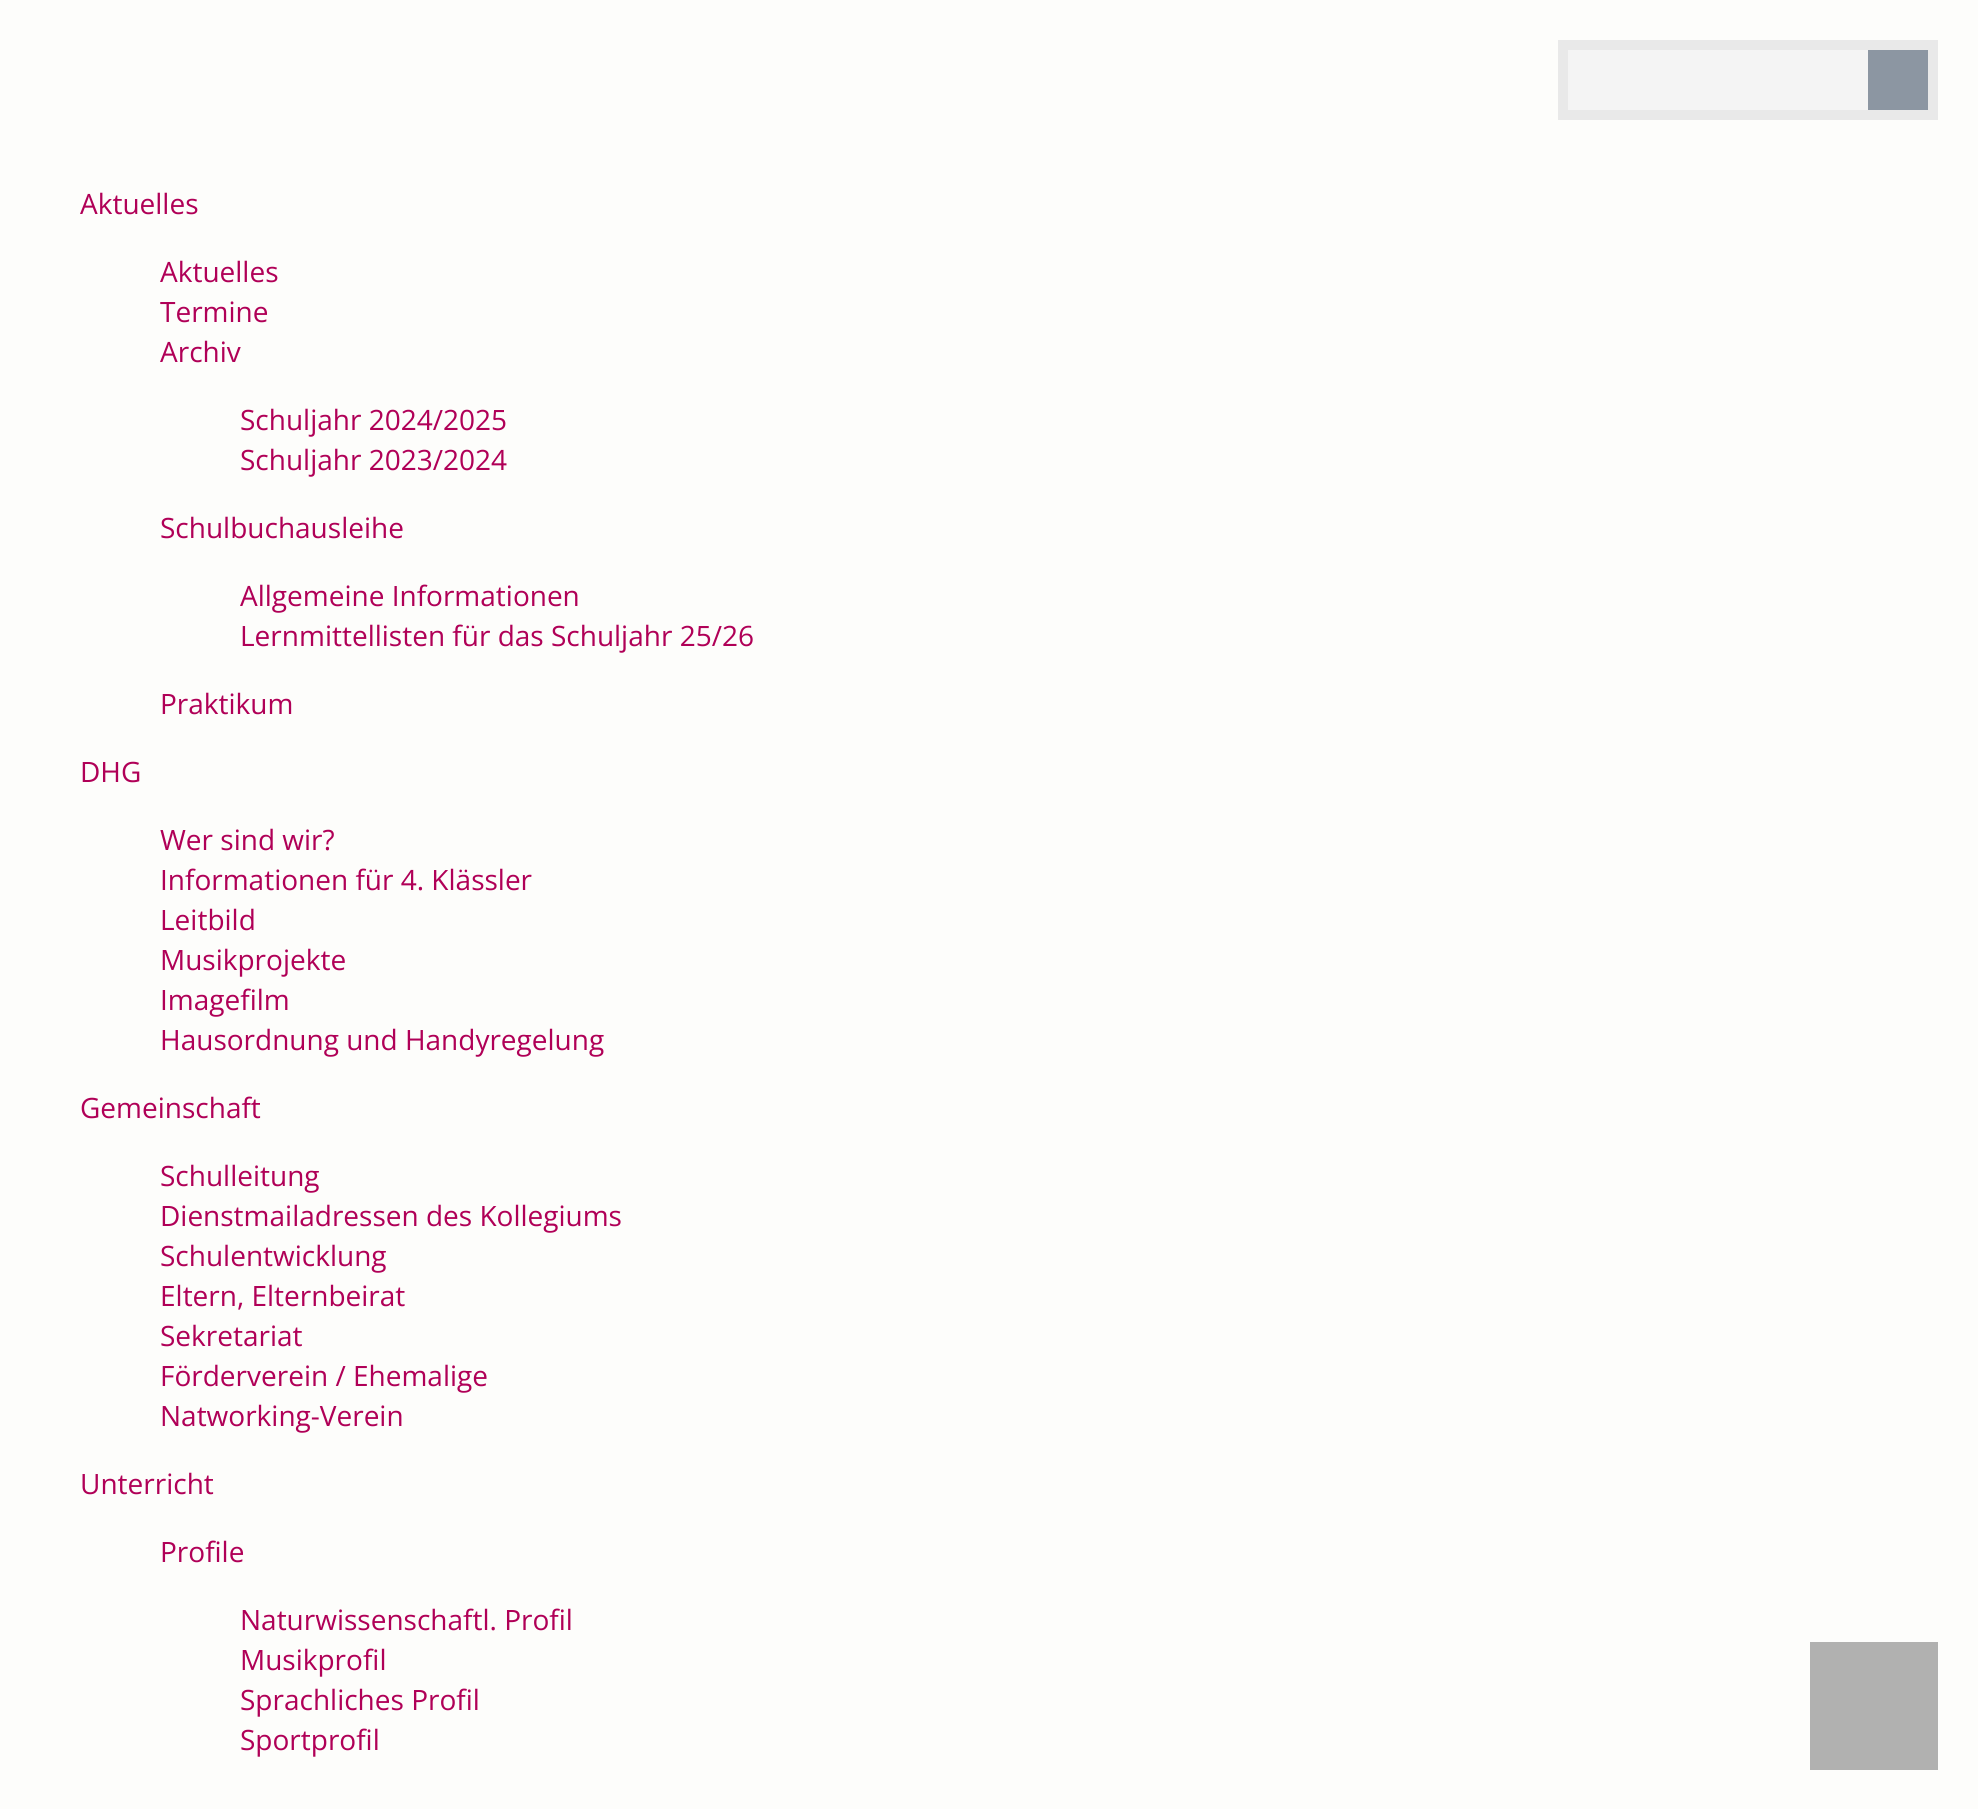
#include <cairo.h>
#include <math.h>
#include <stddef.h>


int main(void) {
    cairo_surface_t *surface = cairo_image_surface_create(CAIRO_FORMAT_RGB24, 1978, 1809);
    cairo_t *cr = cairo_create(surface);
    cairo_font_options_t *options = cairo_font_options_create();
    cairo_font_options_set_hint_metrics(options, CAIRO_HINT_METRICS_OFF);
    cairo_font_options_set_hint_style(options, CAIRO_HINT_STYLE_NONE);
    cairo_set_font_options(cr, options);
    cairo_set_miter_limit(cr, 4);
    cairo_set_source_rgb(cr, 0.992, 0.992, 0.984);
    cairo_paint(cr);
    cairo_set_source_rgb(cr, 0.957, 0.957, 0.957);
    cairo_rectangle(cr, 1568, 50, 300, 60);
    cairo_fill(cr);
    cairo_rectangle(cr, 1563, 45, 370, 70);
    cairo_set_source_rgb(cr, 0.914, 0.914, 0.914);
    cairo_set_line_width(cr, 10);
    cairo_stroke(cr);
    cairo_set_source_rgb(cr, 0.549, 0.588, 0.635);
    cairo_rectangle(cr, 1868, 50, 60, 60);
    cairo_fill(cr);
    cairo_select_font_face(cr, "Open Sans", CAIRO_FONT_SLANT_NORMAL, CAIRO_FONT_WEIGHT_NORMAL);
    cairo_set_font_size(cr, 28);
    cairo_set_source_rgb(cr, 0.69, 0, 0.341);
    cairo_move_to(cr, 80, 214);
    cairo_show_text(cr, "Aktuelles");
    cairo_move_to(cr, 160, 282);
    cairo_show_text(cr, "Aktuelles");
    cairo_move_to(cr, 160, 322);
    cairo_show_text(cr, "Termine");
    cairo_move_to(cr, 160, 362);
    cairo_show_text(cr, "Archiv");
    cairo_move_to(cr, 240, 430);
    cairo_show_text(cr, "Schuljahr 2024/2025");
    cairo_move_to(cr, 240, 470);
    cairo_show_text(cr, "Schuljahr 2023/2024");
    cairo_move_to(cr, 160, 538);
    cairo_show_text(cr, "Schulbuchausleihe");
    cairo_move_to(cr, 240, 606);
    cairo_show_text(cr, "Allgemeine Informationen");
    cairo_move_to(cr, 240, 646);
    cairo_show_text(cr, "Lernmittellisten für das Schuljahr 25/26");
    cairo_move_to(cr, 160, 714);
    cairo_show_text(cr, "Praktikum");
    cairo_move_to(cr, 80, 782);
    cairo_show_text(cr, "DHG");
    cairo_move_to(cr, 160, 850);
    cairo_show_text(cr, "Wer sind wir?");
    cairo_move_to(cr, 160, 890);
    cairo_show_text(cr, "Informationen für 4. Klässler");
    cairo_move_to(cr, 160, 930);
    cairo_show_text(cr, "Leitbild");
    cairo_move_to(cr, 160, 970);
    cairo_show_text(cr, "Musikprojekte");
    cairo_move_to(cr, 160, 1010);
    cairo_show_text(cr, "Imagefilm");
    cairo_move_to(cr, 160, 1050);
    cairo_show_text(cr, "Hausordnung und Handyregelung");
    cairo_move_to(cr, 80, 1118);
    cairo_show_text(cr, "Gemeinschaft");
    cairo_move_to(cr, 160, 1186);
    cairo_show_text(cr, "Schulleitung");
    cairo_move_to(cr, 160, 1226);
    cairo_show_text(cr, "Dienstmailadressen des Kollegiums");
    cairo_move_to(cr, 160, 1266);
    cairo_show_text(cr, "Schulentwicklung");
    cairo_move_to(cr, 160, 1306);
    cairo_show_text(cr, "Eltern, Elternbeirat");
    cairo_move_to(cr, 160, 1346);
    cairo_show_text(cr, "Sekretariat");
    cairo_move_to(cr, 160, 1386);
    cairo_show_text(cr, "Förderverein / Ehemalige");
    cairo_move_to(cr, 160, 1426);
    cairo_show_text(cr, "Natworking-Verein");
    cairo_move_to(cr, 80, 1494);
    cairo_show_text(cr, "Unterricht");
    cairo_move_to(cr, 160, 1562);
    cairo_show_text(cr, "Profile");
    cairo_move_to(cr, 240, 1630);
    cairo_show_text(cr, "Naturwissenschaftl. Profil");
    cairo_move_to(cr, 240, 1670);
    cairo_show_text(cr, "Musikprofil");
    cairo_move_to(cr, 240, 1710);
    cairo_show_text(cr, "Sprachliches Profil");
    cairo_move_to(cr, 240, 1750);
    cairo_show_text(cr, "Sportprofil");
    cairo_set_source_rgb(cr, 0.694, 0.694, 0.69);
    cairo_rectangle(cr, 1810, 1642, 128, 128);
    cairo_fill(cr);
    cairo_surface_write_to_png(surface, "page.png");
    cairo_font_options_destroy(options);
    cairo_destroy(cr);
    cairo_surface_destroy(surface);
    return 0;
}
